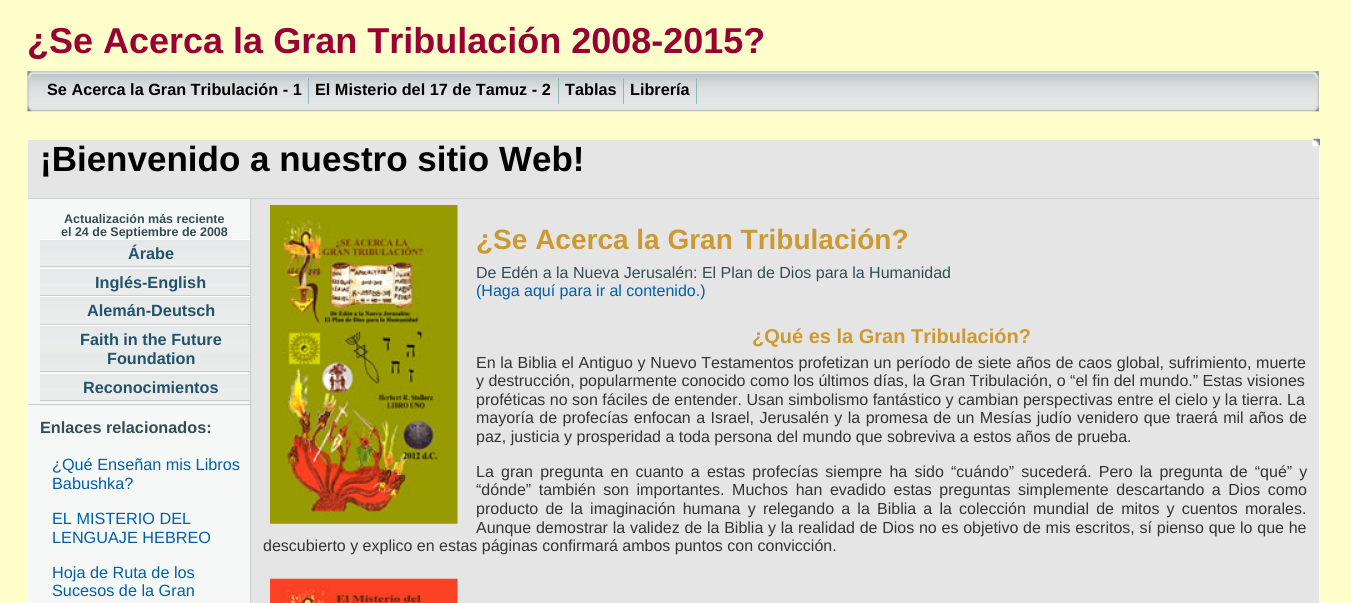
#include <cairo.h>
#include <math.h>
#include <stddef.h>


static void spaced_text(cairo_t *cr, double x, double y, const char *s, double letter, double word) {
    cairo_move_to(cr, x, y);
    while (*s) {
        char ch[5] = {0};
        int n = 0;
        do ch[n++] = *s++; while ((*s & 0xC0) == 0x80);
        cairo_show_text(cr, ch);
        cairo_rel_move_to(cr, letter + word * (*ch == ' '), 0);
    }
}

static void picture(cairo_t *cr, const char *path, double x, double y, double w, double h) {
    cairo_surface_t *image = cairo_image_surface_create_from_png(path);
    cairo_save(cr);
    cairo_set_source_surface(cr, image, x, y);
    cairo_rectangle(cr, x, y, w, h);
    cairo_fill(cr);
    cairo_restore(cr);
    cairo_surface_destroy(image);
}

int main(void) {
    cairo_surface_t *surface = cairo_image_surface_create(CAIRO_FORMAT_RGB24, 1351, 603);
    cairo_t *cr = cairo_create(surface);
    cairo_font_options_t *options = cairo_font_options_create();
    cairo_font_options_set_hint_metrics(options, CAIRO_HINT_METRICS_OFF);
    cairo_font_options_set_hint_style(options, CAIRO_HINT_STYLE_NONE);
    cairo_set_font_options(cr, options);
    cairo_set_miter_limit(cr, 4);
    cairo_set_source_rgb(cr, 1, 1, 0.8);
    cairo_paint(cr);
    cairo_select_font_face(cr, "Liberation Sans", CAIRO_FONT_SLANT_NORMAL, CAIRO_FONT_WEIGHT_BOLD);
    cairo_set_font_size(cr, 36);
    cairo_set_source_rgb(cr, 0.6, 0, 0.2);
    cairo_move_to(cr, 27, 53);
    cairo_show_text(cr, "¿Se Acerca la Gran Tribulación 2008-2015?");
    picture(cr, "img1.png", 27, 71, 1292, 41);
    picture(cr, "img2.png", 27, 71, 6, 41);
    cairo_set_font_size(cr, 16.25);
    cairo_set_source_rgb(cr, 0, 0, 0);
    cairo_move_to(cr, 47, 95);
    cairo_show_text(cr, "Se Acerca la Gran Tribulación - 1");
    cairo_set_source_rgb(cr, 0.561, 0.722, 0.737);
    cairo_rectangle(cr, 308, 78, 1, 26);
    cairo_fill(cr);
    cairo_set_source_rgb(cr, 0, 0, 0);
    cairo_move_to(cr, 315, 95);
    cairo_show_text(cr, "El Misterio del 17 de Tamuz - 2");
    cairo_set_source_rgb(cr, 0.561, 0.722, 0.737);
    cairo_rectangle(cr, 558, 78, 1, 26);
    cairo_fill(cr);
    cairo_set_source_rgb(cr, 0, 0, 0);
    cairo_move_to(cr, 565, 95);
    cairo_show_text(cr, "Tablas");
    cairo_set_source_rgb(cr, 0.561, 0.722, 0.737);
    cairo_rectangle(cr, 623, 78, 1, 26);
    cairo_fill(cr);
    cairo_set_source_rgb(cr, 0, 0, 0);
    cairo_move_to(cr, 630, 95);
    cairo_show_text(cr, "Librería");
    cairo_set_source_rgb(cr, 0.561, 0.722, 0.737);
    cairo_rectangle(cr, 696, 78, 1, 26);
    cairo_fill(cr);
    picture(cr, "img3.png", 1313, 71, 6, 41);
    cairo_set_source_rgb(cr, 0.898, 0.898, 0.898);
    cairo_rectangle(cr, 28, 140, 1291, 463);
    cairo_fill(cr);
    picture(cr, "img4.png", 1312, 138, 8, 9);
    cairo_set_source_rgb(cr, 0.8, 0.824, 0.824);
    cairo_rectangle(cr, 28, 198, 1291, 1);
    cairo_fill(cr);
    cairo_set_font_size(cr, 35);
    cairo_set_source_rgb(cr, 0, 0, 0);
    cairo_move_to(cr, 40, 171);
    cairo_show_text(cr, "¡Bienvenido a nuestro sitio Web!");
    cairo_set_source_rgb(cr, 0.961, 0.969, 0.969);
    cairo_rectangle(cr, 28, 199, 222, 404);
    cairo_fill(cr);
    cairo_set_source_rgb(cr, 0.8, 0.8, 0.8);
    cairo_rectangle(cr, 250, 199, 1, 404);
    cairo_fill(cr);
    cairo_rectangle(cr, 28, 404, 222, 1);
    cairo_fill(cr);
    cairo_set_font_size(cr, 12.5);
    cairo_set_source_rgb(cr, 0.2, 0.302, 0.333);
    cairo_move_to(cr, 64, 223);
    cairo_show_text(cr, "Actualización más reciente");
    cairo_move_to(cr, 61, 236);
    cairo_show_text(cr, "el 24 de Septiembre de 2008");
    picture(cr, "img5.png", 40, 240, 210, 28);
    cairo_set_source_rgb(cr, 1, 1, 1);
    cairo_rectangle(cr, 40, 239, 210, 1);
    cairo_fill(cr);
    cairo_set_source_rgb(cr, 0.8, 0.8, 0.8);
    cairo_rectangle(cr, 40, 266, 210, 1);
    cairo_fill(cr);
    cairo_set_font_size(cr, 16.25);
    cairo_set_source_rgb(cr, 0.129, 0.325, 0.416);
    cairo_move_to(cr, 128, 259);
    cairo_show_text(cr, "Árabe");
    picture(cr, "img6.png", 40, 269, 210, 26);
    cairo_set_source_rgb(cr, 1, 1, 1);
    cairo_rectangle(cr, 40, 268, 210, 1);
    cairo_fill(cr);
    cairo_set_source_rgb(cr, 0.8, 0.8, 0.8);
    cairo_rectangle(cr, 40, 295, 210, 1);
    cairo_fill(cr);
    cairo_set_source_rgb(cr, 0.129, 0.325, 0.416);
    cairo_move_to(cr, 95, 288);
    cairo_show_text(cr, "Inglés-English");
    picture(cr, "img7.png", 40, 297, 210, 27);
    cairo_set_source_rgb(cr, 1, 1, 1);
    cairo_rectangle(cr, 40, 296, 210, 1);
    cairo_fill(cr);
    cairo_set_source_rgb(cr, 0.8, 0.8, 0.8);
    cairo_rectangle(cr, 40, 324, 210, 1);
    cairo_fill(cr);
    cairo_set_source_rgb(cr, 0.129, 0.325, 0.416);
    cairo_move_to(cr, 87, 316);
    cairo_show_text(cr, "Alemán-Deutsch");
    picture(cr, "img8.png", 40, 326, 210, 47);
    cairo_set_source_rgb(cr, 1, 1, 1);
    cairo_rectangle(cr, 40, 325, 210, 1);
    cairo_fill(cr);
    cairo_set_source_rgb(cr, 0.8, 0.8, 0.8);
    cairo_rectangle(cr, 40, 371, 210, 1);
    cairo_fill(cr);
    cairo_set_source_rgb(cr, 0.129, 0.325, 0.416);
    cairo_move_to(cr, 80, 345);
    cairo_show_text(cr, "Faith in the Future");
    cairo_move_to(cr, 107, 364);
    cairo_show_text(cr, "Foundation");
    picture(cr, "img9.png", 40, 374, 210, 28);
    cairo_set_source_rgb(cr, 1, 1, 1);
    cairo_rectangle(cr, 40, 373, 210, 1);
    cairo_fill(cr);
    cairo_set_source_rgb(cr, 0.8, 0.8, 0.8);
    cairo_rectangle(cr, 40, 400, 210, 1);
    cairo_fill(cr);
    cairo_set_source_rgb(cr, 0.129, 0.325, 0.416);
    cairo_move_to(cr, 83, 393);
    cairo_show_text(cr, "Reconocimientos");
    cairo_set_source_rgb(cr, 0.2, 0.302, 0.333);
    cairo_move_to(cr, 40, 433);
    cairo_show_text(cr, "Enlaces relacionados:");
    cairo_select_font_face(cr, "Liberation Sans", CAIRO_FONT_SLANT_NORMAL, CAIRO_FONT_WEIGHT_NORMAL);
    cairo_set_source_rgb(cr, 0, 0.373, 0.663);
    cairo_move_to(cr, 52, 470);
    cairo_show_text(cr, "¿Qué Enseñan mis Libros");
    cairo_move_to(cr, 52, 489);
    cairo_show_text(cr, "Babushka?");
    cairo_move_to(cr, 52, 524);
    cairo_show_text(cr, "EL MISTERIO DEL");
    cairo_move_to(cr, 52, 543);
    cairo_show_text(cr, "LENGUAJE HEBREO");
    cairo_move_to(cr, 52, 578);
    cairo_show_text(cr, "Hoja de Ruta de los");
    cairo_move_to(cr, 52, 596);
    cairo_show_text(cr, "Sucesos de la Gran");
    picture(cr, "img10.png", 270, 205, 188, 319);
    cairo_select_font_face(cr, "Liberation Sans", CAIRO_FONT_SLANT_NORMAL, CAIRO_FONT_WEIGHT_BOLD);
    cairo_set_font_size(cr, 28);
    cairo_set_source_rgb(cr, 0.8, 0.6, 0.2);
    cairo_move_to(cr, 476, 249);
    cairo_show_text(cr, "¿Se Acerca la Gran Tribulación?");
    cairo_select_font_face(cr, "Liberation Sans", CAIRO_FONT_SLANT_NORMAL, CAIRO_FONT_WEIGHT_NORMAL);
    cairo_set_font_size(cr, 16);
    cairo_set_source_rgb(cr, 0.2, 0.302, 0.333);
    cairo_move_to(cr, 476, 278);
    cairo_show_text(cr, "De Edén a la Nueva Jerusalén: El Plan de Dios para la Humanidad");
    cairo_set_source_rgb(cr, 0, 0.373, 0.663);
    cairo_move_to(cr, 476, 296);
    cairo_show_text(cr, "(Haga aquí para ir al contenido.)");
    cairo_select_font_face(cr, "Liberation Sans", CAIRO_FONT_SLANT_NORMAL, CAIRO_FONT_WEIGHT_BOLD);
    cairo_set_font_size(cr, 20);
    cairo_set_source_rgb(cr, 0.8, 0.6, 0.2);
    cairo_move_to(cr, 752, 343);
    cairo_show_text(cr, "¿Qué es la Gran Tribulación?");
    cairo_select_font_face(cr, "Liberation Sans", CAIRO_FONT_SLANT_NORMAL, CAIRO_FONT_WEIGHT_NORMAL);
    cairo_set_font_size(cr, 16);
    cairo_set_source_rgb(cr, 0.2, 0.2, 0.2);
    spaced_text(cr, 476, 368, "En la Biblia el Antiguo y Nuevo Testamentos profetizan un período de siete años de caos global, sufrimiento, muerte", 0, 0.3);
    cairo_move_to(cr, 476, 386);
    cairo_show_text(cr, "y destrucción, popularmente conocido como los últimos días, la Gran Tribulación, o “el fin del mundo.” Estas visiones");
    cairo_move_to(cr, 476, 405);
    cairo_show_text(cr, "proféticas no son fáciles de entender. Usan simbolismo fantástico y cambian perspectivas entre el cielo y la tierra. La");
    spaced_text(cr, 476, 423, "mayoría de profecías enfocan a Israel, Jerusalén y la promesa de un Mesías judío venidero que traerá mil años de", 0, 1);
    cairo_move_to(cr, 476, 442);
    cairo_show_text(cr, "paz, justicia y prosperidad a toda persona del mundo que sobreviva a estos años de prueba.");
    spaced_text(cr, 476, 477, "La gran pregunta en cuanto a estas profecías siempre ha sido “cuándo” sucederá. Pero la pregunta de “qué” y", 0, 2.75);
    spaced_text(cr, 476, 495, "“dónde” también son importantes. Muchos han evadido estas preguntas simplemente descartando a Dios como", 0, 3.1);
    spaced_text(cr, 476, 514, "producto de la imaginación humana y relegando a la Biblia a la colección mundial de mitos y cuentos morales.", 0, 2.75);
    spaced_text(cr, 476, 533, "Aunque demostrar la validez de la Biblia y la realidad de Dios no es objetivo de mis escritos, sí pienso que lo que he", 0, 0.3);
    cairo_move_to(cr, 263, 551);
    cairo_show_text(cr, "descubierto y explico en estas páginas confirmará ambos puntos con convicción.");
    picture(cr, "img11.png", 270, 578, 188, 25);
    cairo_surface_write_to_png(surface, "page.png");
    cairo_font_options_destroy(options);
    cairo_destroy(cr);
    cairo_surface_destroy(surface);
    return 0;
}
